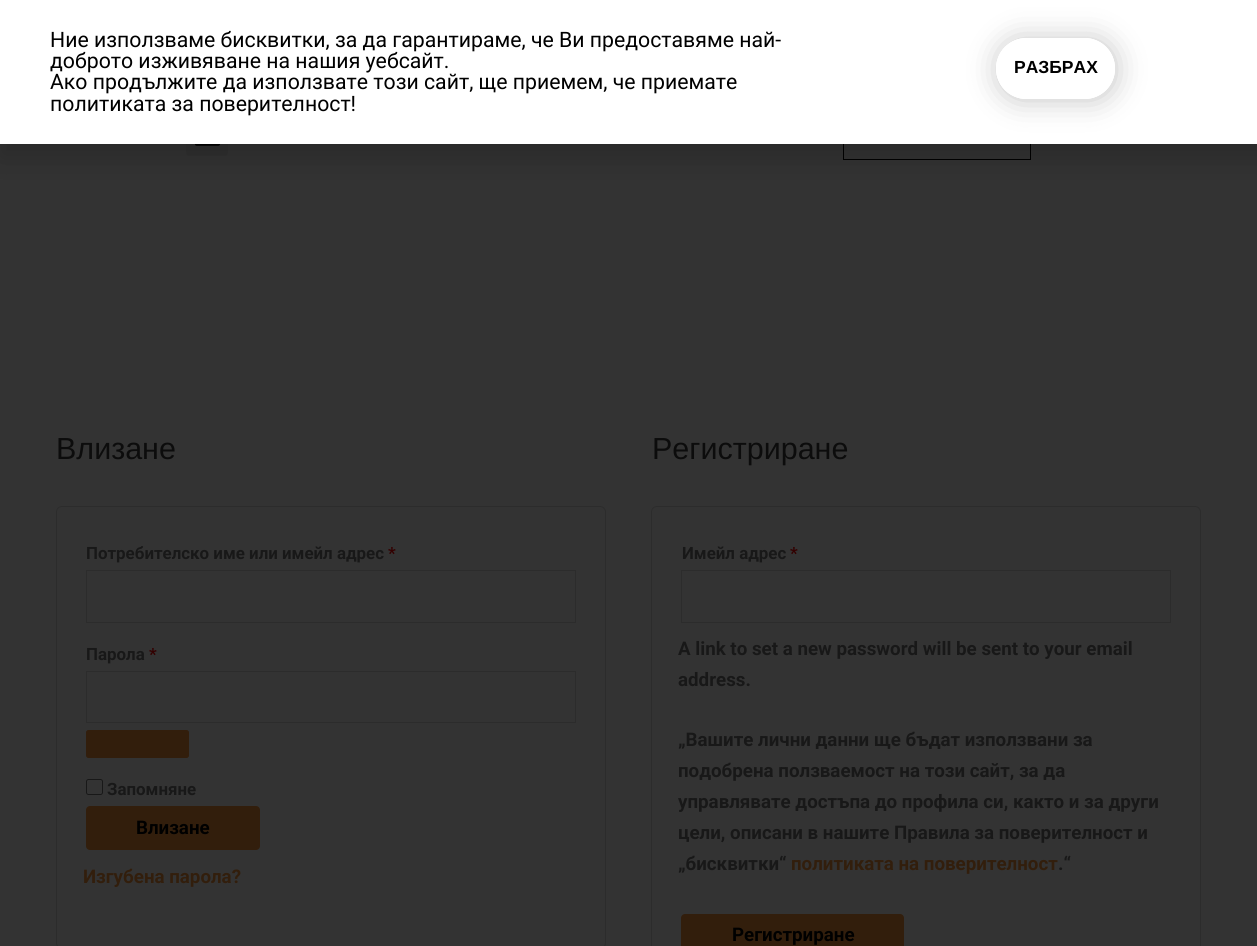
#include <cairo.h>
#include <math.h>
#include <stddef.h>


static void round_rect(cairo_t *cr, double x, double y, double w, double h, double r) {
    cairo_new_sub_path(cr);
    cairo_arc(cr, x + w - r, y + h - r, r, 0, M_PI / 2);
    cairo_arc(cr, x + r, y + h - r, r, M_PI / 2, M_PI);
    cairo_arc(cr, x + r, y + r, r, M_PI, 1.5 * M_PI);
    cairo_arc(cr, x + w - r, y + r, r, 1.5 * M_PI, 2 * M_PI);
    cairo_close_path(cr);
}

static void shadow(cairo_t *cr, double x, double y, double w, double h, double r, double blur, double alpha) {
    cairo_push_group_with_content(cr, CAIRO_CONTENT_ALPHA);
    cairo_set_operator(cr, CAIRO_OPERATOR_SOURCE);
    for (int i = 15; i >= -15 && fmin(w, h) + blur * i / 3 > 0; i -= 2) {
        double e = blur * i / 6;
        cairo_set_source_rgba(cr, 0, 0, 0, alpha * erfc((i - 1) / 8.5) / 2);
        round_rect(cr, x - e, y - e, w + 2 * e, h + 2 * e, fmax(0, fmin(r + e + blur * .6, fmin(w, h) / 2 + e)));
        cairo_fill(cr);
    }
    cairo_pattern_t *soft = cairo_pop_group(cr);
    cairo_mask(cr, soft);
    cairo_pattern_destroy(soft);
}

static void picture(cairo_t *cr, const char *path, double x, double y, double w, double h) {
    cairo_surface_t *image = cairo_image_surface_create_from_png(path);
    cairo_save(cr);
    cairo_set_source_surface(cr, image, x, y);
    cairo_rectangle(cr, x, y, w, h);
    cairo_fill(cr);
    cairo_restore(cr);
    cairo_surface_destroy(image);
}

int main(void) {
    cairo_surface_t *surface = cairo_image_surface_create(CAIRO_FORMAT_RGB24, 1257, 946);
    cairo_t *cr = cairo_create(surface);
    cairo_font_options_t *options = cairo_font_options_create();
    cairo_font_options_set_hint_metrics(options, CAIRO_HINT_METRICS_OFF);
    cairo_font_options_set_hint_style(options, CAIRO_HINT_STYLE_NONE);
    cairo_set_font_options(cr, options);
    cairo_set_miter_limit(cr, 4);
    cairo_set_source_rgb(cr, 0.2, 0.2, 0.2);
    cairo_paint(cr);
    cairo_set_source_rgb(cr, 0.188, 0.188, 0.188);
    round_rect(cr, 186, 115, 42, 41, 4);
    cairo_fill(cr);
    picture(cr, "img1.png", 194, 144, 27, 2);
    cairo_rectangle(cr, 843.5, 111.5, 187, 48);
    cairo_set_source_rgb(cr, 0, 0, 0);
    cairo_set_line_width(cr, 1);
    cairo_stroke(cr);
    cairo_set_source_rgb(cr, 0, 0, 0);
    shadow(cr, -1, 6, 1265, 152, 0, 14.5, 0.2);
    cairo_set_source_rgb(cr, 1, 1, 1);
    cairo_rectangle(cr, 0, 0, 1257, 144);
    cairo_fill(cr);
    cairo_select_font_face(cr, "Roboto", CAIRO_FONT_SLANT_NORMAL, CAIRO_FONT_WEIGHT_NORMAL);
    cairo_set_font_size(cr, 21.25);
    cairo_set_source_rgb(cr, 0, 0, 0);
    cairo_move_to(cr, 50, 47);
    cairo_show_text(cr, "Ние използваме бисквитки, за да гарантираме, че Ви предоставяме най-");
    cairo_move_to(cr, 50, 68);
    cairo_show_text(cr, "доброто изживяване на нашия уебсайт.");
    cairo_move_to(cr, 50, 89);
    cairo_show_text(cr, "Ако продължите да използвате този сайт, ще приемем, че приемате");
    cairo_move_to(cr, 50, 111);
    cairo_show_text(cr, "политиката за поверителност!");
    cairo_save(cr);
    cairo_set_fill_rule(cr, CAIRO_FILL_RULE_EVEN_ODD);
    cairo_new_path(cr);
    cairo_move_to(cr, 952, 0);
    cairo_line_to(cr, 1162, 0);
    cairo_line_to(cr, 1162, 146);
    cairo_line_to(cr, 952, 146);
    cairo_close_path(cr);
    cairo_move_to(cr, 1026.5, 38);
    cairo_line_to(cr, 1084.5, 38);
    cairo_curve_to(cr, 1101.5, 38, 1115, 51.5, 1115, 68.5);
    cairo_curve_to(cr, 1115, 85.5, 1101.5, 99, 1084.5, 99);
    cairo_line_to(cr, 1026.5, 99);
    cairo_curve_to(cr, 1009.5, 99, 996, 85.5, 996, 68.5);
    cairo_curve_to(cr, 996, 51.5, 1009.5, 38, 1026.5, 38);
    cairo_close_path(cr);
    cairo_clip(cr);
    cairo_set_source_rgb(cr, 0, 0, 0);
    shadow(cr, 998, 39, 118, 61, 30.5, 15, 0.23);
    cairo_restore(cr);
    round_rect(cr, 997.5, 39.5, 116, 58, 29);
    cairo_set_source_rgb(cr, 1, 1, 1);
    cairo_set_line_width(cr, 3);
    cairo_stroke(cr);
    cairo_select_font_face(cr, "Liberation Sans", CAIRO_FONT_SLANT_NORMAL, CAIRO_FONT_WEIGHT_BOLD);
    cairo_set_font_size(cr, 17.5);
    cairo_set_source_rgb(cr, 0, 0, 0);
    cairo_move_to(cr, 1014, 73);
    cairo_show_text(cr, "РАЗБРАХ");
    cairo_select_font_face(cr, "Liberation Sans", CAIRO_FONT_SLANT_NORMAL, CAIRO_FONT_WEIGHT_NORMAL);
    cairo_set_font_size(cr, 30.5);
    cairo_set_source_rgb(cr, 0.047, 0.047, 0.047);
    cairo_move_to(cr, 56, 459);
    cairo_show_text(cr, "Влизане");
    round_rect(cr, 56.5, 506.5, 549, 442, 5.5);
    cairo_set_source_rgb(cr, 0.173, 0.173, 0.173);
    cairo_set_line_width(cr, 1);
    cairo_stroke(cr);
    cairo_select_font_face(cr, "Roboto", CAIRO_FONT_SLANT_NORMAL, CAIRO_FONT_WEIGHT_BOLD);
    cairo_set_font_size(cr, 16.9);
    cairo_set_source_rgb(cr, 0.094, 0.094, 0.094);
    cairo_move_to(cr, 86, 559);
    cairo_show_text(cr, "Потребителско име или имейл адрес");
    cairo_set_source_rgb(cr, 0.2, 0, 0);
    cairo_move_to(cr, 388, 559);
    cairo_show_text(cr, "*");
    cairo_rectangle(cr, 86.5, 570.5, 489, 52);
    cairo_set_source_rgb(cr, 0.173, 0.173, 0.173);
    cairo_stroke(cr);
    cairo_set_source_rgb(cr, 0.094, 0.094, 0.094);
    cairo_move_to(cr, 86, 660);
    cairo_show_text(cr, "Парола");
    cairo_set_source_rgb(cr, 0.2, 0, 0);
    cairo_move_to(cr, 149, 660);
    cairo_show_text(cr, "*");
    cairo_rectangle(cr, 86.5, 671.5, 489, 51);
    cairo_set_source_rgb(cr, 0.173, 0.173, 0.173);
    cairo_stroke(cr);
    cairo_set_source_rgb(cr, 0.196, 0.118, 0.047);
    round_rect(cr, 86.5, 730.5, 102, 27, 2);
    cairo_fill_preserve(cr);
    cairo_stroke(cr);
    round_rect(cr, 86.5, 779.5, 16, 15, 2);
    cairo_set_source_rgb(cr, 0.094, 0.094, 0.094);
    cairo_stroke(cr);
    cairo_move_to(cr, 107, 795);
    cairo_show_text(cr, "Запомняне");
    cairo_set_source_rgb(cr, 0.196, 0.118, 0.047);
    round_rect(cr, 86, 806, 174, 44, 4);
    cairo_fill(cr);
    cairo_set_font_size(cr, 18.75);
    cairo_set_source_rgb(cr, 0, 0, 0);
    cairo_move_to(cr, 136, 834);
    cairo_show_text(cr, "Влизане");
    cairo_set_source_rgb(cr, 0.196, 0.118, 0.047);
    cairo_move_to(cr, 83, 883);
    cairo_show_text(cr, "Изгубена парола?");
    cairo_select_font_face(cr, "Liberation Sans", CAIRO_FONT_SLANT_NORMAL, CAIRO_FONT_WEIGHT_NORMAL);
    cairo_set_font_size(cr, 30.5);
    cairo_set_source_rgb(cr, 0.047, 0.047, 0.047);
    cairo_move_to(cr, 652, 459);
    cairo_show_text(cr, "Регистриране");
    round_rect(cr, 651.5, 506.5, 549, 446, 5.5);
    cairo_set_source_rgb(cr, 0.173, 0.173, 0.173);
    cairo_stroke(cr);
    cairo_select_font_face(cr, "Roboto", CAIRO_FONT_SLANT_NORMAL, CAIRO_FONT_WEIGHT_BOLD);
    cairo_set_font_size(cr, 16.9);
    cairo_set_source_rgb(cr, 0.094, 0.094, 0.094);
    cairo_move_to(cr, 682, 559);
    cairo_show_text(cr, "Имейл адрес");
    cairo_set_source_rgb(cr, 0.2, 0, 0);
    cairo_move_to(cr, 790, 559);
    cairo_show_text(cr, "*");
    cairo_rectangle(cr, 681.5, 570.5, 489, 52);
    cairo_set_source_rgb(cr, 0.173, 0.173, 0.173);
    cairo_stroke(cr);
    cairo_set_font_size(cr, 18.75);
    cairo_set_source_rgb(cr, 0.094, 0.094, 0.094);
    cairo_move_to(cr, 678, 655);
    cairo_show_text(cr, "A link to set a new password will be sent to your email");
    cairo_move_to(cr, 678, 686);
    cairo_show_text(cr, "address.");
    cairo_move_to(cr, 678, 746);
    cairo_show_text(cr, "„Вашите лични данни ще бъдат използвани за");
    cairo_move_to(cr, 678, 777);
    cairo_show_text(cr, "подобрена ползваемост на този сайт, за да");
    cairo_move_to(cr, 678, 808);
    cairo_show_text(cr, "управлявате достъпа до профила си, както и за други");
    cairo_move_to(cr, 678, 839);
    cairo_show_text(cr, "цели, описани в нашите Правила за поверителност и");
    cairo_move_to(cr, 678, 870);
    cairo_show_text(cr, "„бисквитки“");
    cairo_set_source_rgb(cr, 0.196, 0.118, 0.047);
    cairo_move_to(cr, 791, 870);
    cairo_show_text(cr, "политиката на поверителност");
    cairo_set_source_rgb(cr, 0.094, 0.094, 0.094);
    cairo_move_to(cr, 1058, 870);
    cairo_show_text(cr, ".“");
    cairo_set_source_rgb(cr, 0.196, 0.118, 0.047);
    round_rect(cr, 681, 914, 223, 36, 4);
    cairo_fill(cr);
    cairo_set_source_rgb(cr, 0, 0, 0);
    cairo_move_to(cr, 732, 941);
    cairo_show_text(cr, "Регистриране");
    cairo_surface_write_to_png(surface, "page.png");
    cairo_font_options_destroy(options);
    cairo_destroy(cr);
    cairo_surface_destroy(surface);
    return 0;
}
